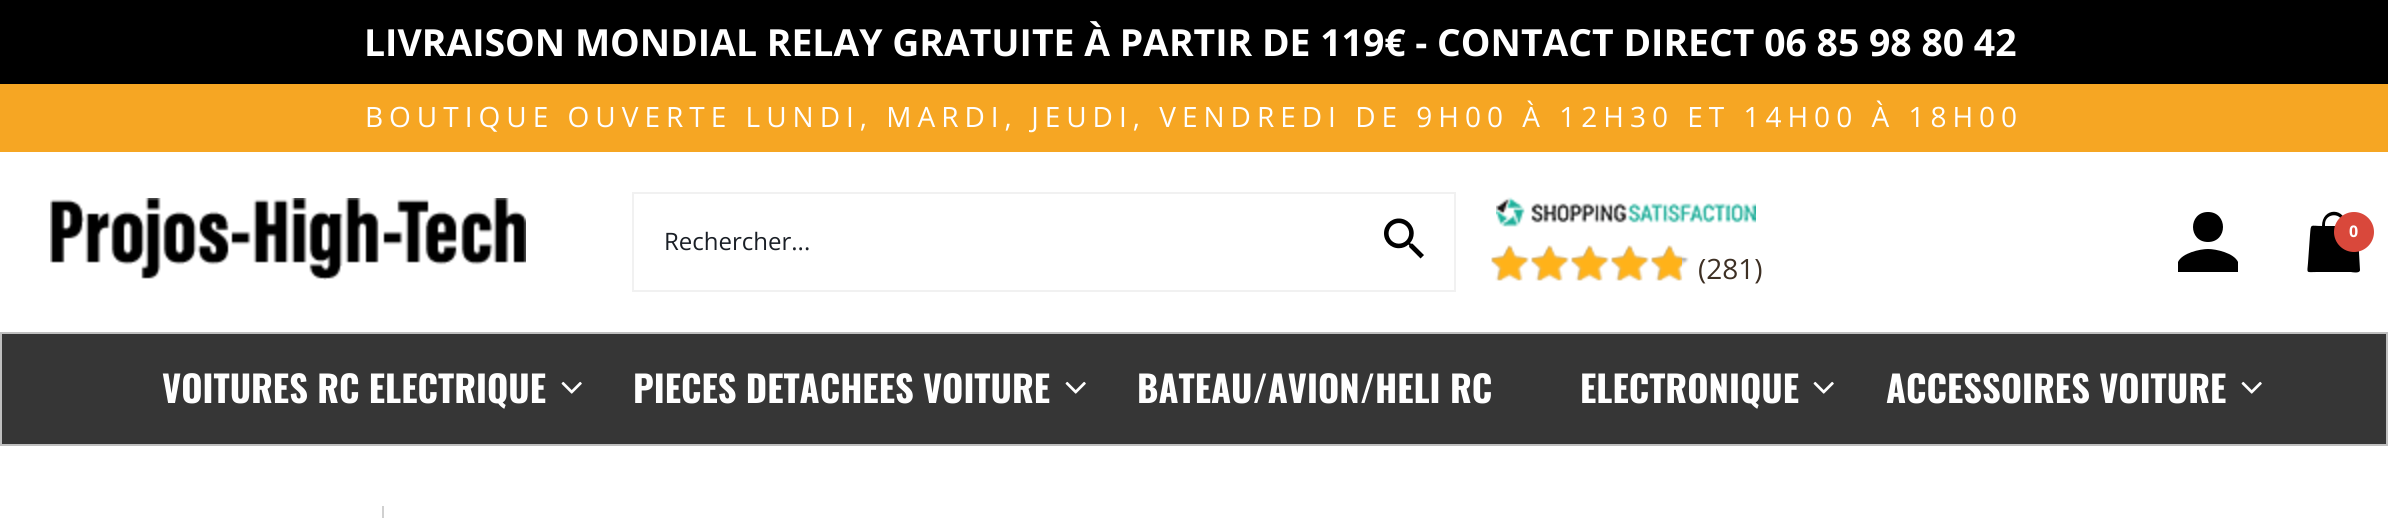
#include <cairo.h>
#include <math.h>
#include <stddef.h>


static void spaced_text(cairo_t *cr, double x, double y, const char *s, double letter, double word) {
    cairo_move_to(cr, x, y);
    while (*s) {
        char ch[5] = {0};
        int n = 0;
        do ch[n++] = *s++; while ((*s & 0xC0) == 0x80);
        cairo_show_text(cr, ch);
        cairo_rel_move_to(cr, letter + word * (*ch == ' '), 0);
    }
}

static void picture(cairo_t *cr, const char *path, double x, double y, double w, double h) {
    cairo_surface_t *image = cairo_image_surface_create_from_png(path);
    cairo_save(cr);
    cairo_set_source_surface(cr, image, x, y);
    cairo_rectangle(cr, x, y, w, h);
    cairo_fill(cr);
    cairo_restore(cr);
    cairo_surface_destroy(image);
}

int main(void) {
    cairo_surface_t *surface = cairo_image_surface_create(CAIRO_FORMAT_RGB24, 2388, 518);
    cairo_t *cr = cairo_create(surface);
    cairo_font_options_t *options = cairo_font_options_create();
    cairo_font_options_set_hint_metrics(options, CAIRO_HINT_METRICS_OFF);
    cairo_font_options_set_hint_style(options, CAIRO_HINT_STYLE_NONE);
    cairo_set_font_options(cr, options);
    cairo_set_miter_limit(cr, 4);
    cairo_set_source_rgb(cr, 1, 1, 1);
    cairo_paint(cr);
    cairo_set_source_rgb(cr, 0, 0, 0);
    cairo_rectangle(cr, 0, 0, 2388, 84);
    cairo_fill(cr);
    cairo_select_font_face(cr, "Open Sans", CAIRO_FONT_SLANT_NORMAL, CAIRO_FONT_WEIGHT_BOLD);
    cairo_set_font_size(cr, 37.35);
    cairo_set_source_rgb(cr, 1, 1, 1);
    cairo_move_to(cr, 364, 56);
    cairo_show_text(cr, "LIVRAISON MONDIAL RELAY GRATUITE À PARTIR DE 119€ - CONTACT DIRECT 06 85 98 80 42");
    cairo_set_source_rgb(cr, 0.961, 0.651, 0.137);
    cairo_rectangle(cr, 0, 84, 2388, 68);
    cairo_fill(cr);
    cairo_select_font_face(cr, "Open Sans", CAIRO_FONT_SLANT_NORMAL, CAIRO_FONT_WEIGHT_NORMAL);
    cairo_set_font_size(cr, 28);
    cairo_set_source_rgb(cr, 1, 1, 1);
    spaced_text(cr, 365, 127, "BOUTIQUE OUVERTE LUNDI, MARDI, JEUDI, VENDREDI DE 9H00 À 12H30 ET 14H00 À 18H00", 6, 0);
    picture(cr, "img1.png", 50, 198, 476, 82);
    cairo_set_source_rgb(cr, 0.945, 0.945, 0.945);
    cairo_rectangle(cr, 632, 192, 824, 2);
    cairo_fill(cr);
    cairo_rectangle(cr, 632, 290, 722, 2);
    cairo_fill(cr);
    cairo_rectangle(cr, 632, 192, 2, 100);
    cairo_fill(cr);
    cairo_set_font_size(cr, 24);
    cairo_set_source_rgb(cr, 0.102, 0.122, 0.149);
    cairo_move_to(cr, 664, 250);
    cairo_show_text(cr, "Rechercher...");
    cairo_set_source_rgb(cr, 0.945, 0.945, 0.945);
    cairo_rectangle(cr, 1454, 192, 2, 100);
    cairo_fill(cr);
    cairo_rectangle(cr, 1354, 290, 102, 2);
    cairo_fill(cr);
    picture(cr, "img2.png", 1384, 218, 40, 41);
    picture(cr, "img3.png", 1496, 197, 260, 30);
    picture(cr, "img4.png", 1491, 245, 198, 36);
    picture(cr, "img5.png", 1491, 245, 191, 36);
    cairo_set_font_size(cr, 28);
    cairo_set_source_rgb(cr, 0.243, 0.188, 0.141);
    cairo_move_to(cr, 1698, 279);
    cairo_show_text(cr, "(281)");
    cairo_set_source_rgb(cr, 0, 0, 0);
    cairo_new_path(cr);
    cairo_move_to(cr, 2208, 242);
    cairo_curve_to(cr, 2228, 242, 2228, 212, 2208, 212);
    cairo_curve_to(cr, 2188, 212, 2188, 242, 2208, 242);
    cairo_close_path(cr);
    cairo_move_to(cr, 2208, 249);
    cairo_curve_to(cr, 2200, 249, 2182, 253, 2178, 262);
    cairo_line_to(cr, 2178, 272);
    cairo_line_to(cr, 2238, 272);
    cairo_line_to(cr, 2238, 262);
    cairo_curve_to(cr, 2234, 253, 2216, 249, 2208, 249);
    cairo_close_path(cr);
    cairo_fill(cr);
    cairo_new_path(cr);
    cairo_move_to(cr, 2360, 270);
    cairo_line_to(cr, 2358, 235);
    cairo_curve_to(cr, 2357, 223, 2358, 226, 2346, 226);
    cairo_curve_to(cr, 2346, 207, 2322, 207, 2322, 226);
    cairo_curve_to(cr, 2310, 226, 2311, 223, 2310, 235);
    cairo_line_to(cr, 2308, 263);
    cairo_curve_to(cr, 2307, 274, 2306, 272, 2317, 272);
    cairo_line_to(cr, 2351, 272);
    cairo_curve_to(cr, 2351, 272, 2360, 274, 2360, 270);
    cairo_close_path(cr);
    cairo_move_to(cr, 2325, 224);
    cairo_curve_to(cr, 2325, 213, 2343, 211, 2343, 226);
    cairo_line_to(cr, 2325, 226);
    cairo_close_path(cr);
    cairo_fill(cr);
    cairo_set_source_rgb(cr, 0.851, 0.282, 0.231);
    cairo_arc(cr, 2354, 232, 20, 0, 2 * M_PI);
    cairo_fill(cr);
    cairo_select_font_face(cr, "Open Sans", CAIRO_FONT_SLANT_NORMAL, CAIRO_FONT_WEIGHT_BOLD);
    cairo_set_font_size(cr, 16);
    cairo_set_source_rgb(cr, 1, 1, 1);
    cairo_move_to(cr, 2349, 237);
    cairo_show_text(cr, "0");
    cairo_set_source_rgb(cr, 0.212, 0.212, 0.212);
    cairo_rectangle(cr, 1, 333, 2386, 112);
    cairo_fill_preserve(cr);
    cairo_set_source_rgb(cr, 0.749, 0.749, 0.749);
    cairo_stroke(cr);
    cairo_select_font_face(cr, "Oswald", CAIRO_FONT_SLANT_NORMAL, CAIRO_FONT_WEIGHT_BOLD);
    cairo_set_font_size(cr, 36.4);
    cairo_set_source_rgb(cr, 1, 1, 1);
    cairo_move_to(cr, 162, 403);
    cairo_show_text(cr, "VOITURES RC ELECTRIQUE");
    picture(cr, "img6.png", 561, 381, 21, 13);
    cairo_move_to(cr, 633, 403);
    cairo_show_text(cr, "PIECES DETACHEES VOITURE");
    picture(cr, "img6.png", 1065, 381, 21, 13);
    cairo_move_to(cr, 1137, 403);
    cairo_show_text(cr, "BATEAU/AVION/HELI RC");
    cairo_move_to(cr, 1580, 403);
    cairo_show_text(cr, "ELECTRONIQUE");
    picture(cr, "img6.png", 1813, 381, 21, 13);
    cairo_move_to(cr, 1886, 403);
    cairo_show_text(cr, "ACCESSOIRES VOITURE");
    picture(cr, "img6.png", 2241, 381, 21, 13);
    cairo_set_source_rgb(cr, 0.816, 0.816, 0.816);
    cairo_rectangle(cr, 382, 506, 2, 12);
    cairo_fill(cr);
    cairo_surface_write_to_png(surface, "page.png");
    cairo_font_options_destroy(options);
    cairo_destroy(cr);
    cairo_surface_destroy(surface);
    return 0;
}
